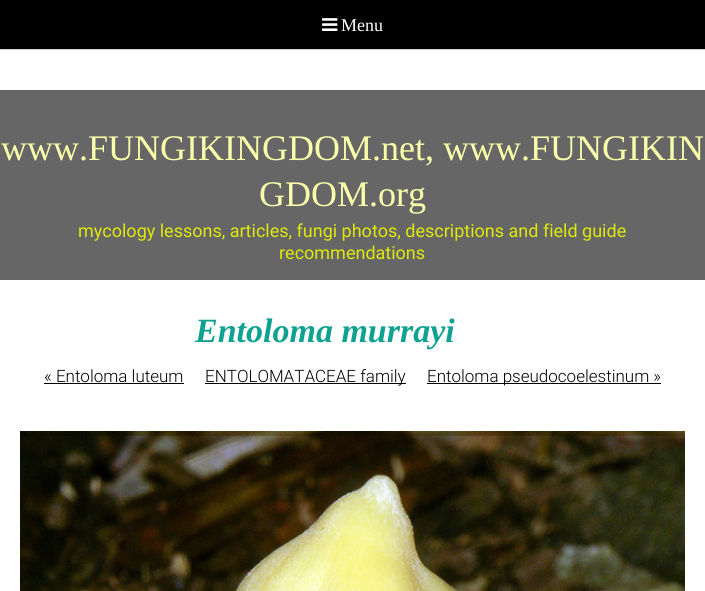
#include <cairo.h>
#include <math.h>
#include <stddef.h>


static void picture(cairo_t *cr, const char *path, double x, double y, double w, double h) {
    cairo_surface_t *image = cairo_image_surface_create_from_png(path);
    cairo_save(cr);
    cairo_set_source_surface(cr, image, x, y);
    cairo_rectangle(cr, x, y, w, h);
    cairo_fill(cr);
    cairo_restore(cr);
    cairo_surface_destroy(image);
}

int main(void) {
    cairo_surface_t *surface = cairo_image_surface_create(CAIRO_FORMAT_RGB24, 705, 591);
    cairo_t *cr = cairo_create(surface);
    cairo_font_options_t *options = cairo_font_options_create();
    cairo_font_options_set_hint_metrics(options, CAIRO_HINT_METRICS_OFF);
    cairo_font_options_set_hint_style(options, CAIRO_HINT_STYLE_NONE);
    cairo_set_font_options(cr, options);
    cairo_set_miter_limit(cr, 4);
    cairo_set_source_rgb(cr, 1, 1, 1);
    cairo_paint(cr);
    cairo_set_source_rgb(cr, 0, 0, 0);
    cairo_rectangle(cr, 0, 0, 705, 49);
    cairo_fill(cr);
    cairo_set_source_rgb(cr, 0.816, 0.816, 0.816);
    cairo_rectangle(cr, 0, 49, 705, 1);
    cairo_fill(cr);
    picture(cr, "img1.png", 322, 18, 16, 13);
    cairo_select_font_face(cr, "Liberation Serif", CAIRO_FONT_SLANT_NORMAL, CAIRO_FONT_WEIGHT_NORMAL);
    cairo_set_font_size(cr, 18);
    cairo_set_source_rgb(cr, 1, 1, 1);
    cairo_move_to(cr, 341, 31);
    cairo_show_text(cr, "Menu");
    cairo_set_source_rgb(cr, 0.4, 0.4, 0.4);
    cairo_rectangle(cr, 0, 90, 705, 190);
    cairo_fill(cr);
    cairo_set_font_size(cr, 36);
    cairo_set_source_rgb(cr, 0.976, 1, 0.663);
    cairo_move_to(cr, 1, 160);
    cairo_show_text(cr, "www.FUNGIKINGDOM.net,");
    cairo_move_to(cr, 443, 160);
    cairo_show_text(cr, "www.FUNGIKIN");
    cairo_move_to(cr, 259, 206);
    cairo_show_text(cr, "GDOM.org");
    cairo_select_font_face(cr, "Roboto", CAIRO_FONT_SLANT_NORMAL, CAIRO_FONT_WEIGHT_NORMAL);
    cairo_set_font_size(cr, 18);
    cairo_set_source_rgb(cr, 0.871, 0.91, 0.043);
    cairo_move_to(cr, 78, 237);
    cairo_show_text(cr, "mycology lessons, articles, fungi photos, descriptions and field guide");
    cairo_move_to(cr, 279, 259);
    cairo_show_text(cr, "recommendations");
    cairo_select_font_face(cr, "Liberation Serif", CAIRO_FONT_SLANT_ITALIC, CAIRO_FONT_WEIGHT_BOLD);
    cairo_set_font_size(cr, 34);
    cairo_set_source_rgb(cr, 0.063, 0.635, 0.565);
    cairo_move_to(cr, 195, 342);
    cairo_show_text(cr, "Entoloma murrayi");
    cairo_select_font_face(cr, "Roboto Light", CAIRO_FONT_SLANT_NORMAL, CAIRO_FONT_WEIGHT_NORMAL);
    cairo_set_font_size(cr, 17);
    cairo_set_source_rgb(cr, 0, 0, 0);
    cairo_move_to(cr, 44, 382);
    cairo_show_text(cr, "« Entoloma luteum");
    cairo_rectangle(cr, 44, 383, 140, 1);
    cairo_fill(cr);
    cairo_rectangle(cr, 205, 383, 201, 1);
    cairo_fill(cr);
    cairo_move_to(cr, 205, 382);
    cairo_show_text(cr, "ENTOLOMATACEAE family");
    cairo_rectangle(cr, 427, 383, 234, 1);
    cairo_fill(cr);
    cairo_move_to(cr, 427, 382);
    cairo_show_text(cr, "Entoloma pseudocoelestinum »");
    picture(cr, "img2.png", 20, 431, 665, 160);
    cairo_surface_write_to_png(surface, "page.png");
    cairo_font_options_destroy(options);
    cairo_destroy(cr);
    cairo_surface_destroy(surface);
    return 0;
}
